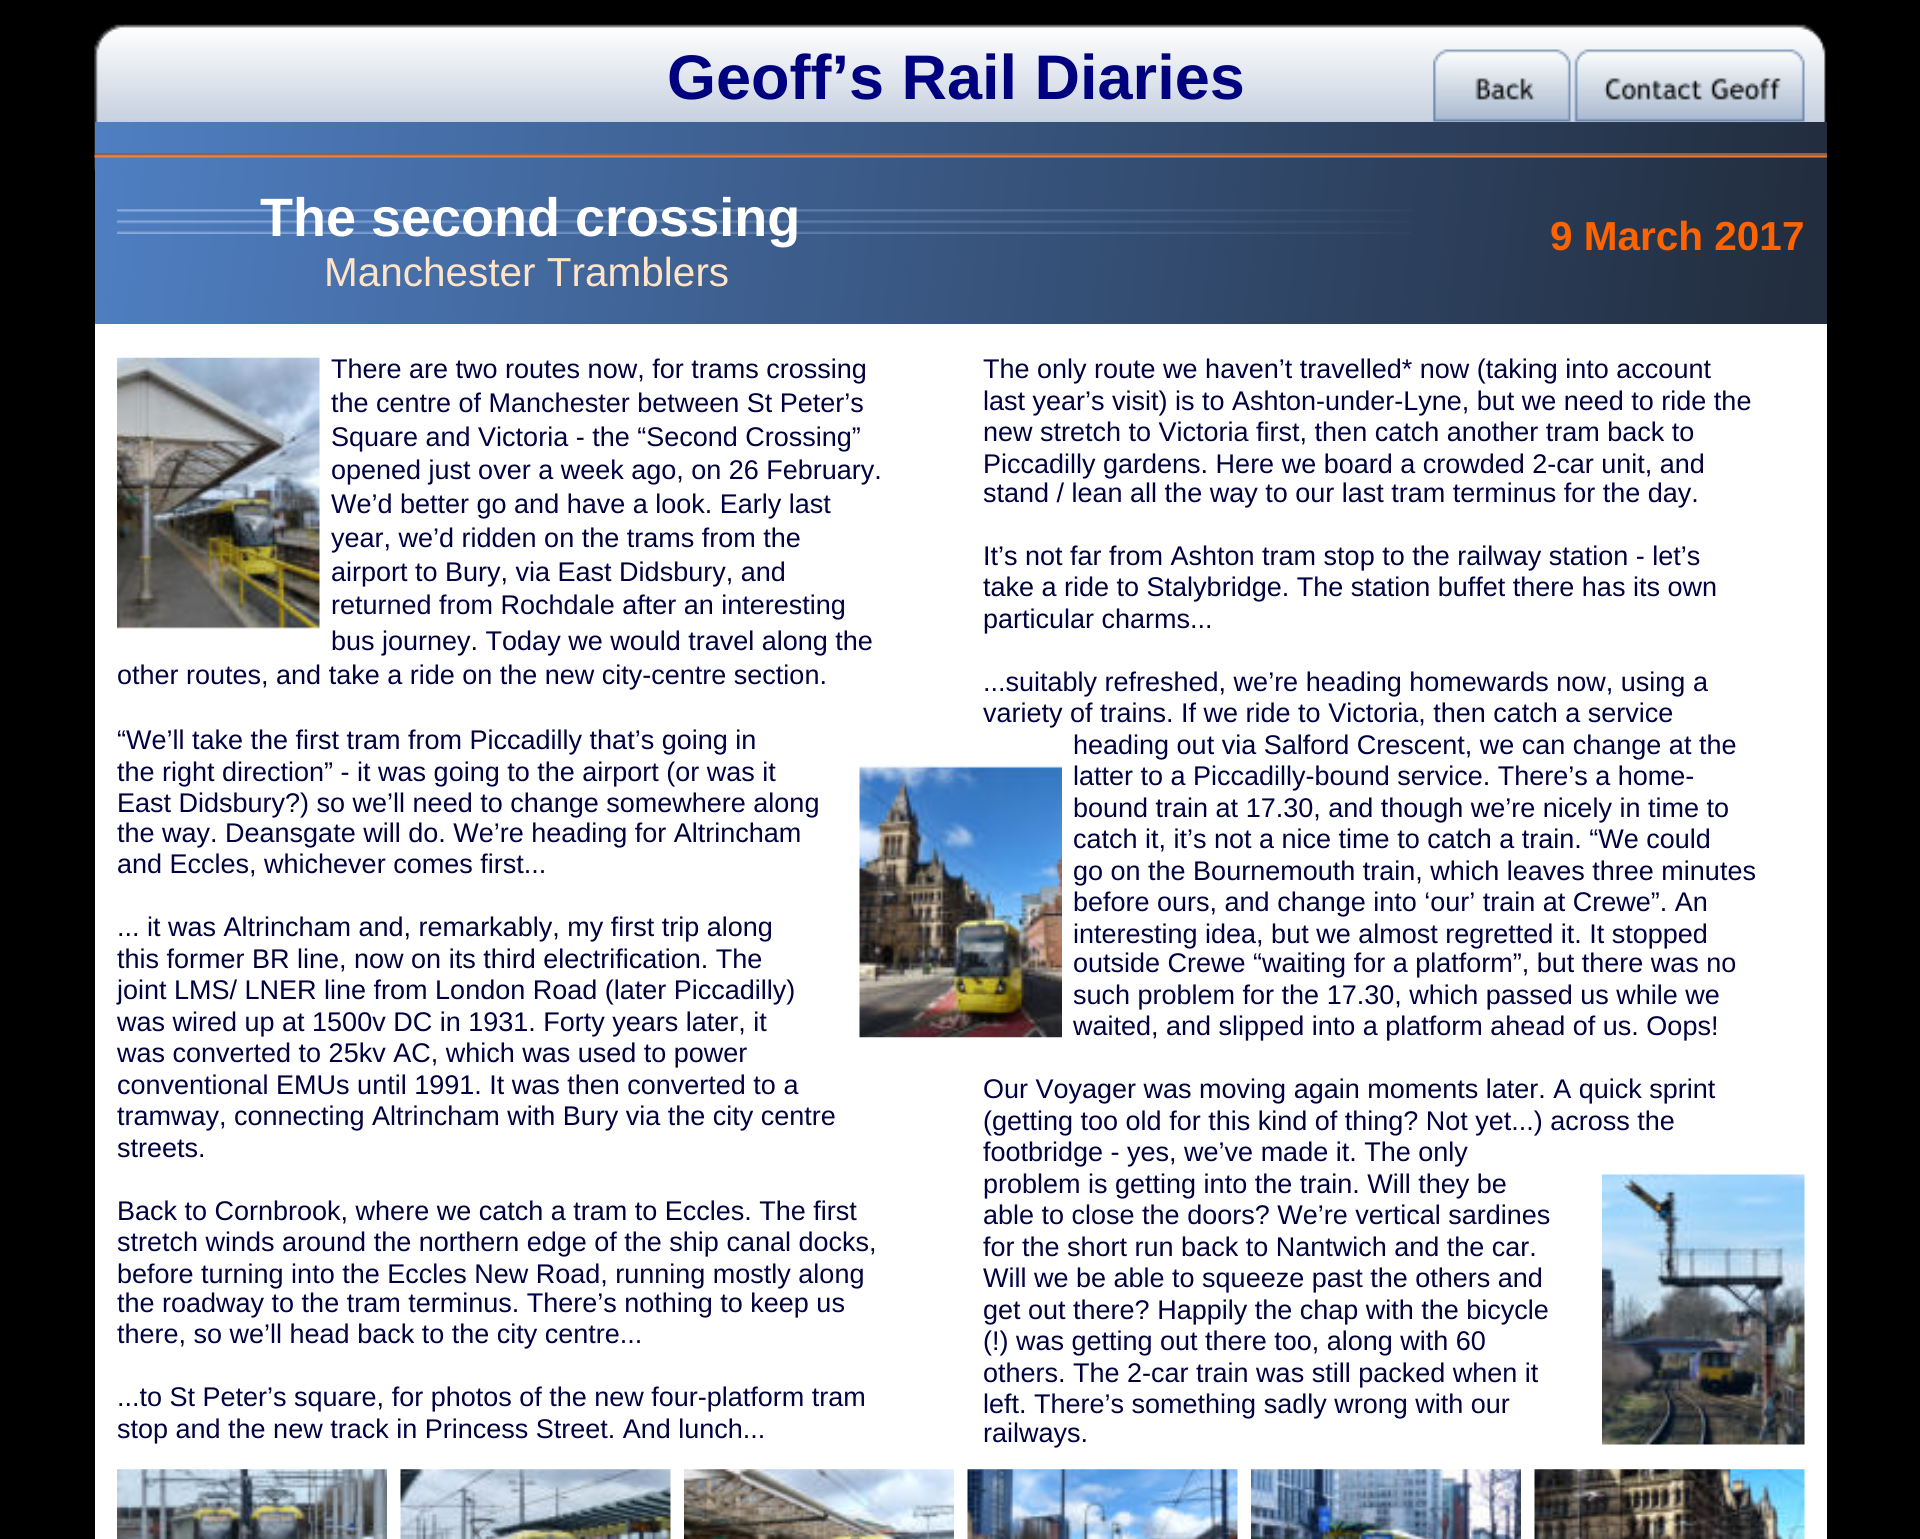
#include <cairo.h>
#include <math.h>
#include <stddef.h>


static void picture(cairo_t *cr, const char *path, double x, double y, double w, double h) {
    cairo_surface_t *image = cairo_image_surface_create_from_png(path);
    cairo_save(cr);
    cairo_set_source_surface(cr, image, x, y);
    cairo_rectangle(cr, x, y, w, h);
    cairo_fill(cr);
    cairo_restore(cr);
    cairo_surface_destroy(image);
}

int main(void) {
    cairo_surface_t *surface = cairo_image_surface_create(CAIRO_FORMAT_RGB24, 1920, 1539);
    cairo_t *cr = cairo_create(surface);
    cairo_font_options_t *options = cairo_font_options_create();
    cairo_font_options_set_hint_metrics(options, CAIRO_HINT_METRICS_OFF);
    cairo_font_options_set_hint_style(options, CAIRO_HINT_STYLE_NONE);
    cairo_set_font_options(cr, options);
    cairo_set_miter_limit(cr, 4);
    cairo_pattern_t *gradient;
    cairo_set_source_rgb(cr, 0, 0, 0);
    cairo_paint(cr);
    picture(cr, "img1.png", 94, 24, 1733, 148);
    cairo_select_font_face(cr, "Liberation Sans", CAIRO_FONT_SLANT_NORMAL, CAIRO_FONT_WEIGHT_BOLD);
    cairo_set_font_size(cr, 63);
    cairo_set_source_rgb(cr, 0, 0.004, 0.498);
    cairo_move_to(cr, 667, 99);
    cairo_show_text(cr, "Geoff’s Rail Diaries");
    gradient = cairo_pattern_create_linear(-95, 93, 1826, 329);
    cairo_pattern_add_color_stop_rgba(gradient, 0, 0.329, 0.533, 0.82, 1);
    cairo_pattern_add_color_stop_rgba(gradient, 0.99, 0.133, 0.176, 0.243, 1);
    cairo_set_source(cr, gradient);
    cairo_pattern_destroy(gradient);
    cairo_rectangle(cr, 95, 122, 1732, 202);
    cairo_fill(cr);
    picture(cr, "img2.png", 1433, 49, 138, 74);
    picture(cr, "img3.png", 1574, 49, 231, 74);
    cairo_set_source_rgb(cr, 0.255, 0.373, 0.502);
    cairo_rectangle(cr, 95, 153, 1732, 2);
    cairo_fill(cr);
    picture(cr, "img4.png", 94, 153, 1733, 5);
    picture(cr, "img5.png", 117, 209, 1295, 25);
    cairo_set_font_size(cr, 54);
    cairo_set_source_rgb(cr, 1, 1, 1);
    cairo_move_to(cr, 260, 236);
    cairo_show_text(cr, "The second crossing");
    cairo_set_font_size(cr, 40.5);
    cairo_set_source_rgb(cr, 1, 0.388, 0);
    cairo_move_to(cr, 1550, 250);
    cairo_show_text(cr, "9 March 2017");
    cairo_select_font_face(cr, "Liberation Sans", CAIRO_FONT_SLANT_NORMAL, CAIRO_FONT_WEIGHT_NORMAL);
    cairo_set_source_rgb(cr, 1, 0.894, 0.784);
    cairo_move_to(cr, 324, 286);
    cairo_show_text(cr, "Manchester Tramblers");
    cairo_set_source_rgb(cr, 1, 1, 1);
    cairo_rectangle(cr, 95, 324, 1732, 1215);
    cairo_fill(cr);
    picture(cr, "img6.png", 117, 357, 203, 272);
    cairo_set_font_size(cr, 27);
    cairo_set_source_rgb(cr, 0, 0.004, 0.251);
    cairo_move_to(cr, 331, 378);
    cairo_show_text(cr, "There are two routes now, for trams crossing");
    cairo_move_to(cr, 331, 412);
    cairo_show_text(cr, "the centre of Manchester between St Peter’s");
    cairo_move_to(cr, 331, 446);
    cairo_show_text(cr, "Square and Victoria - the “Second Crossing”");
    cairo_move_to(cr, 331, 479);
    cairo_show_text(cr, "opened just over a week ago, on 26 February.");
    cairo_move_to(cr, 331, 513);
    cairo_show_text(cr, "We’d better go and have a look. Early last");
    cairo_move_to(cr, 331, 547);
    cairo_show_text(cr, "year, we’d ridden on the trams from the");
    cairo_move_to(cr, 331, 581);
    cairo_show_text(cr, "airport to Bury, via East Didsbury, and");
    cairo_move_to(cr, 331, 614);
    cairo_show_text(cr, "returned from Rochdale after an interesting");
    cairo_move_to(cr, 331, 650);
    cairo_show_text(cr, "bus journey. Today we would travel along the");
    cairo_move_to(cr, 117, 684);
    cairo_show_text(cr, "other routes, and take a ride on the new city-centre section.");
    cairo_move_to(cr, 117, 749);
    cairo_show_text(cr, "“We’ll take the first tram from Piccadilly that’s going in");
    cairo_move_to(cr, 117, 781);
    cairo_show_text(cr, "the right direction” - it was going to the airport (or was it");
    cairo_move_to(cr, 117, 812);
    cairo_show_text(cr, "East Didsbury?) so we’ll need to change somewhere along");
    cairo_move_to(cr, 117, 842);
    cairo_show_text(cr, "the way. Deansgate will do. We’re heading for Altrincham");
    cairo_move_to(cr, 117, 873);
    cairo_show_text(cr, "and Eccles, whichever comes first...");
    cairo_move_to(cr, 117, 936);
    cairo_show_text(cr, "... it was Altrincham and, remarkably, my first trip along");
    cairo_move_to(cr, 117, 968);
    cairo_show_text(cr, "this former BR line, now on its third electrification. The");
    cairo_move_to(cr, 117, 999);
    cairo_show_text(cr, "joint LMS/ LNER line from London Road (later Piccadilly)");
    cairo_move_to(cr, 117, 1031);
    cairo_show_text(cr, "was wired up at 1500v DC in 1931. Forty years later, it");
    cairo_move_to(cr, 117, 1062);
    cairo_show_text(cr, "was converted to 25kv AC, which was used to power");
    cairo_move_to(cr, 117, 1094);
    cairo_show_text(cr, "conventional EMUs until 1991. It was then converted to a");
    cairo_move_to(cr, 117, 1125);
    cairo_show_text(cr, "tramway, connecting Altrincham with Bury via the city centre");
    cairo_move_to(cr, 117, 1157);
    cairo_show_text(cr, "streets.");
    cairo_move_to(cr, 117, 1220);
    cairo_show_text(cr, "Back to Cornbrook, where we catch a tram to Eccles. The first");
    cairo_move_to(cr, 117, 1251);
    cairo_show_text(cr, "stretch winds around the northern edge of the ship canal docks,");
    cairo_move_to(cr, 117, 1283);
    cairo_show_text(cr, "before turning into the Eccles New Road, running mostly along");
    cairo_move_to(cr, 117, 1312);
    cairo_show_text(cr, "the roadway to the tram terminus. There’s nothing to keep us");
    cairo_move_to(cr, 117, 1343);
    cairo_show_text(cr, "there, so we’ll head back to the city centre...");
    cairo_move_to(cr, 117, 1406);
    cairo_show_text(cr, "...to St Peter’s square, for photos of the new four-platform tram");
    cairo_move_to(cr, 117, 1438);
    cairo_show_text(cr, "stop and the new track in Princess Street. And lunch...");
    picture(cr, "img7.png", 859, 765, 203, 273);
    cairo_move_to(cr, 983, 378);
    cairo_show_text(cr, "The only route we haven’t travelled* now (taking into account");
    cairo_move_to(cr, 983, 410);
    cairo_show_text(cr, "last year’s visit) is to Ashton-under-Lyne, but we need to ride the");
    cairo_move_to(cr, 983, 441);
    cairo_show_text(cr, "new stretch to Victoria first, then catch another tram back to");
    cairo_move_to(cr, 983, 473);
    cairo_show_text(cr, "Piccadilly gardens. Here we board a crowded 2-car unit, and");
    cairo_move_to(cr, 983, 502);
    cairo_show_text(cr, "stand / lean all the way to our last tram terminus for the day.");
    cairo_move_to(cr, 983, 565);
    cairo_show_text(cr, "It’s not far from Ashton tram stop to the railway station - let’s");
    cairo_move_to(cr, 983, 596);
    cairo_show_text(cr, "take a ride to Stalybridge. The station buffet there has its own");
    cairo_move_to(cr, 983, 628);
    cairo_show_text(cr, "particular charms...");
    cairo_move_to(cr, 983, 691);
    cairo_show_text(cr, "...suitably refreshed, we’re heading homewards now, using a");
    cairo_move_to(cr, 983, 722);
    cairo_show_text(cr, "variety of trains. If we ride to Victoria, then catch a service");
    cairo_move_to(cr, 1073, 754);
    cairo_show_text(cr, "heading out via Salford Crescent, we can change at the");
    cairo_move_to(cr, 1073, 785);
    cairo_show_text(cr, "latter to a Piccadilly-bound service. There’s a home-");
    cairo_move_to(cr, 1073, 817);
    cairo_show_text(cr, "bound train at 17.30, and though we’re nicely in time to");
    cairo_move_to(cr, 1073, 848);
    cairo_show_text(cr, "catch it, it’s not a nice time to catch a train. “We could");
    cairo_move_to(cr, 1073, 880);
    cairo_show_text(cr, "go on the Bournemouth train, which leaves three minutes");
    cairo_move_to(cr, 1073, 911);
    cairo_show_text(cr, "before ours, and change into ‘our’ train at Crewe”. An");
    cairo_move_to(cr, 1073, 943);
    cairo_show_text(cr, "interesting idea, but we almost regretted it. It stopped");
    cairo_move_to(cr, 1073, 972);
    cairo_show_text(cr, "outside Crewe “waiting for a platform”, but there was no");
    cairo_move_to(cr, 1073, 1004);
    cairo_show_text(cr, "such problem for the 17.30, which passed us while we");
    cairo_move_to(cr, 1073, 1035);
    cairo_show_text(cr, "waited, and slipped into a platform ahead of us. Oops!");
    cairo_move_to(cr, 983, 1098);
    cairo_show_text(cr, "Our Voyager was moving again moments later. A quick sprint");
    cairo_move_to(cr, 983, 1130);
    cairo_show_text(cr, "(getting too old for this kind of thing? Not yet...) across the");
    cairo_move_to(cr, 983, 1161);
    cairo_show_text(cr, "footbridge - yes, we’ve made it. The only");
    cairo_move_to(cr, 983, 1193);
    cairo_show_text(cr, "problem is getting into the train. Will they be");
    cairo_move_to(cr, 983, 1224);
    cairo_show_text(cr, "able to close the doors? We’re vertical sardines");
    cairo_move_to(cr, 983, 1256);
    cairo_show_text(cr, "for the short run back to Nantwich and the car.");
    cairo_move_to(cr, 983, 1287);
    cairo_show_text(cr, "Will we be able to squeeze past the others and");
    cairo_move_to(cr, 983, 1319);
    cairo_show_text(cr, "get out there? Happily the chap with the bicycle");
    cairo_move_to(cr, 983, 1350);
    cairo_show_text(cr, "(!) was getting out there too, along with 60");
    cairo_move_to(cr, 983, 1382);
    cairo_show_text(cr, "others. The 2-car train was still packed when it");
    cairo_move_to(cr, 983, 1413);
    cairo_show_text(cr, "left. There’s something sadly wrong with our");
    cairo_move_to(cr, 983, 1442);
    cairo_show_text(cr, "railways.");
    picture(cr, "img8.png", 1602, 1174, 203, 271);
    picture(cr, "img9.png", 117, 1469, 270, 70);
    picture(cr, "img10.png", 400, 1469, 271, 70);
    picture(cr, "img11.png", 684, 1469, 270, 70);
    picture(cr, "img12.png", 967, 1469, 271, 70);
    picture(cr, "img13.png", 1251, 1469, 270, 70);
    picture(cr, "img14.png", 1534, 1469, 271, 70);
    cairo_surface_write_to_png(surface, "page.png");
    cairo_font_options_destroy(options);
    cairo_destroy(cr);
    cairo_surface_destroy(surface);
    return 0;
}
